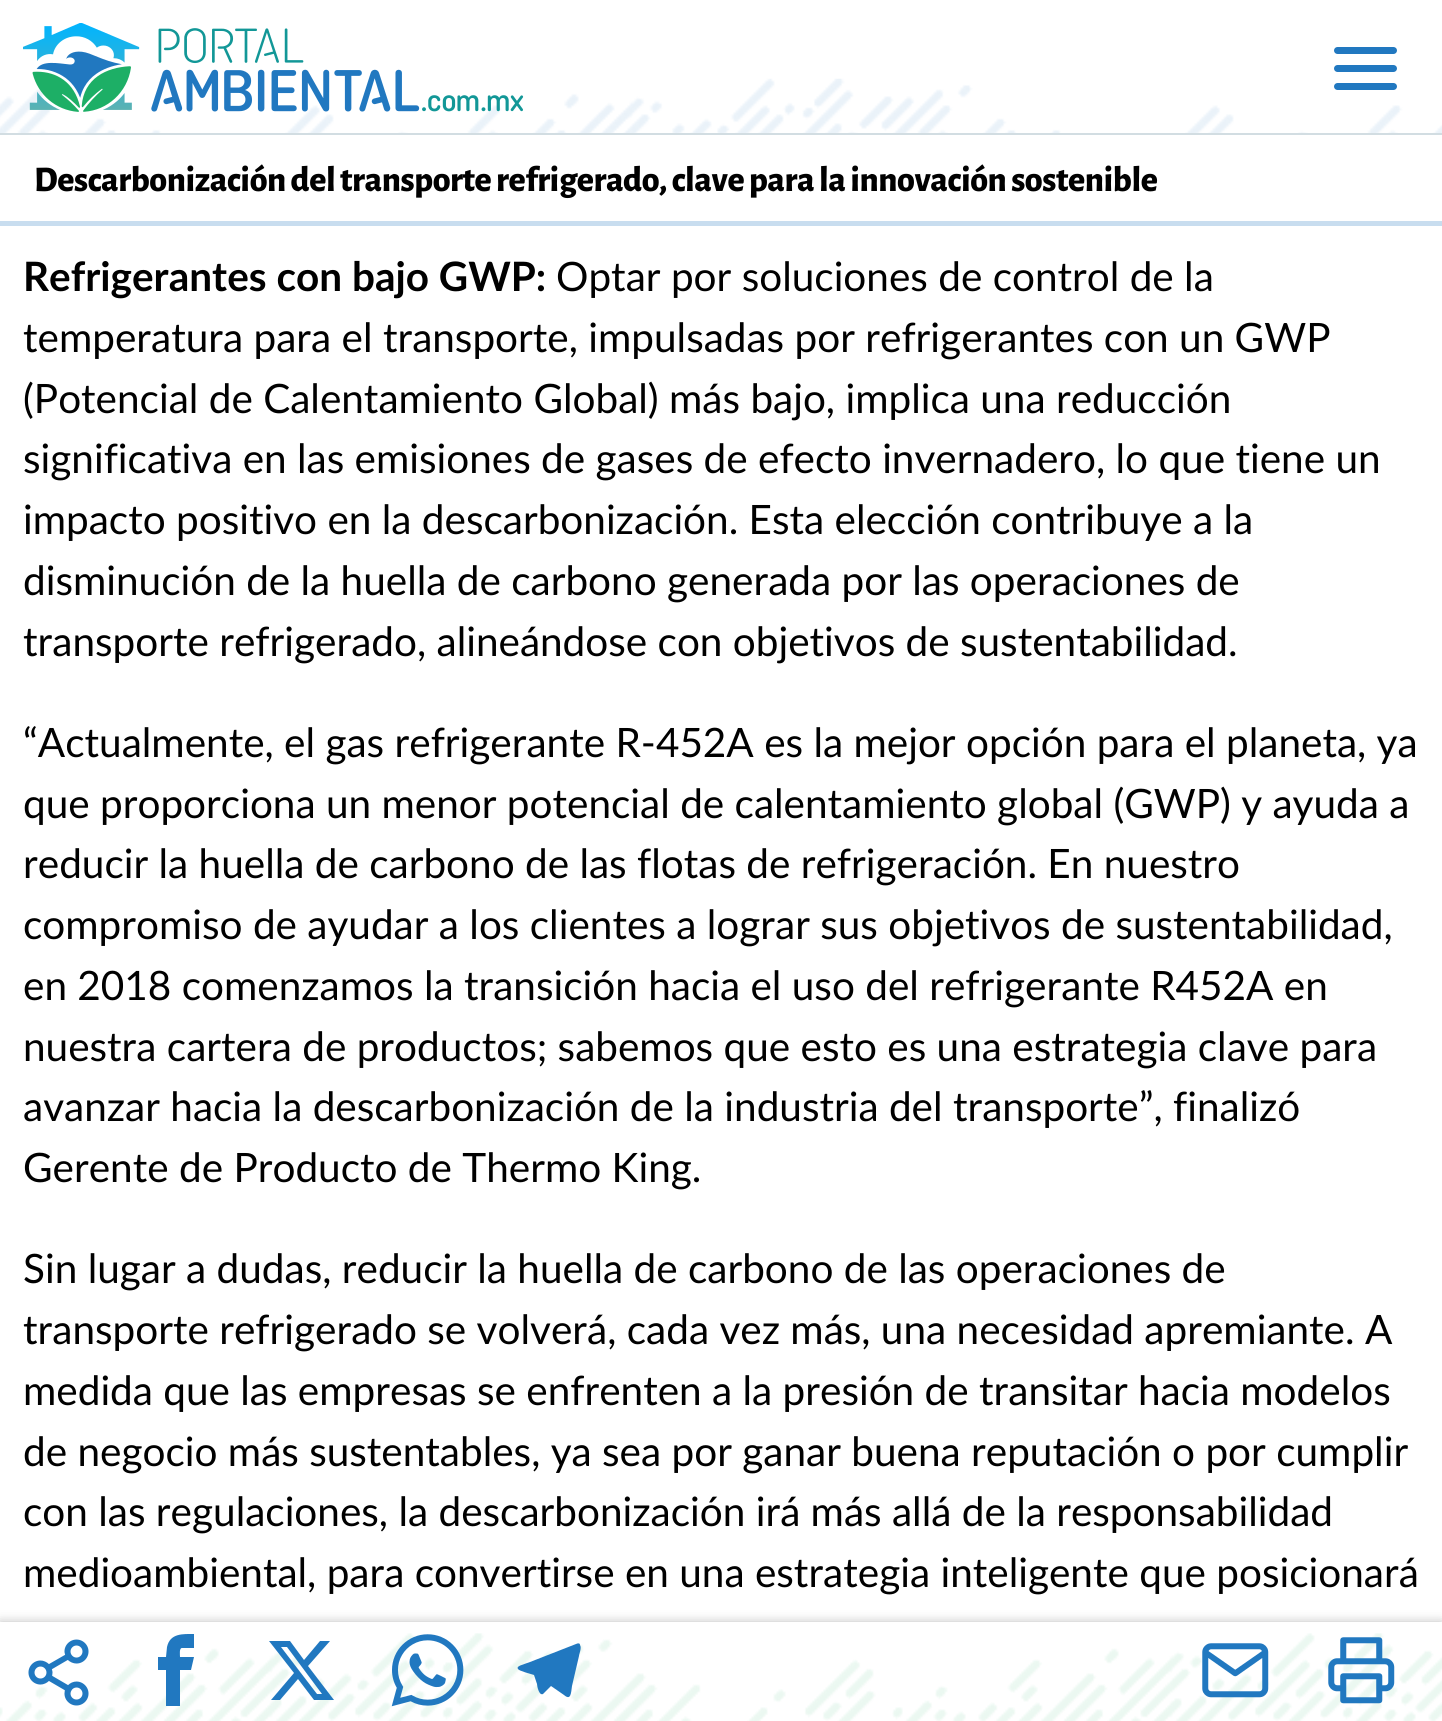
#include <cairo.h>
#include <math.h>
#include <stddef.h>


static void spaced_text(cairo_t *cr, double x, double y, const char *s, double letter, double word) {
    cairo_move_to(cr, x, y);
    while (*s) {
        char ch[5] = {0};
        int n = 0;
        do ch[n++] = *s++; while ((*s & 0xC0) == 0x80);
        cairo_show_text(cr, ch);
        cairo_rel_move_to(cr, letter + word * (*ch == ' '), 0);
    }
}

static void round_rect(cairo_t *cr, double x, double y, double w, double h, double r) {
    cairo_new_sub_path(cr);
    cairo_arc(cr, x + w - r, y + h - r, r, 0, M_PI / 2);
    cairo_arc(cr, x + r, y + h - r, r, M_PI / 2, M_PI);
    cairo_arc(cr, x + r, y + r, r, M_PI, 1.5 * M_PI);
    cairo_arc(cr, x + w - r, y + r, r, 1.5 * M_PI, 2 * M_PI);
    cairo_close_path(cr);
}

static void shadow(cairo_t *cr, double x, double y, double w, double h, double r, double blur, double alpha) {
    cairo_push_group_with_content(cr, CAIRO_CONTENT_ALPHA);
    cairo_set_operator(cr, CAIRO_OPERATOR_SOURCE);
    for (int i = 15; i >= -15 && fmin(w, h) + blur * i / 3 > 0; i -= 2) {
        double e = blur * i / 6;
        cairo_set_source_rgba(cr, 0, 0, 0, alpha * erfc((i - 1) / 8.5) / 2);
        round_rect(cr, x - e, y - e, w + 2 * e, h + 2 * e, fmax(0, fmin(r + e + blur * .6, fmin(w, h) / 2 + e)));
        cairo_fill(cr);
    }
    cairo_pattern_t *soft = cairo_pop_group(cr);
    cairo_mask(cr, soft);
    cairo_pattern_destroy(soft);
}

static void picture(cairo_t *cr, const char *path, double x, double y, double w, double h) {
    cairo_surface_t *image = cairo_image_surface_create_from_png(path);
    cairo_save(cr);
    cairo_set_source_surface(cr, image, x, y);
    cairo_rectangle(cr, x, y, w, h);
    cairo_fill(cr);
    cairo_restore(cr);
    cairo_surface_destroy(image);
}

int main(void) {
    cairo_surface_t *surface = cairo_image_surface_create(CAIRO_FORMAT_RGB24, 1442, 1721);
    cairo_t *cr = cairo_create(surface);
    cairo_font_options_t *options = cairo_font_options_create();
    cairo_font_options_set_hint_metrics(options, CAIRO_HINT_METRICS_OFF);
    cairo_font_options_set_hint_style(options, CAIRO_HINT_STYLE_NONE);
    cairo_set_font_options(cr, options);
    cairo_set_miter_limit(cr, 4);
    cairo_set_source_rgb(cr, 1, 1, 1);
    cairo_paint(cr);
    picture(cr, "img1.png", 0, 78, 1442, 55);
    picture(cr, "img2.png", 23, 23, 501, 89);
    cairo_set_source_rgb(cr, 0.129, 0.471, 0.753);
    round_rect(cr, 1334, 47, 63, 7, 3.5);
    cairo_fill(cr);
    round_rect(cr, 1334, 65, 63, 7, 3.5);
    cairo_fill(cr);
    round_rect(cr, 1334, 83, 63, 7, 3.5);
    cairo_fill(cr);
    cairo_set_source_rgb(cr, 0.824, 0.867, 0.886);
    cairo_rectangle(cr, 0, 133, 1442, 2);
    cairo_fill(cr);
    cairo_set_source_rgb(cr, 0.784, 0.867, 0.937);
    cairo_rectangle(cr, 0, 221, 1442, 5);
    cairo_fill(cr);
    cairo_select_font_face(cr, "Alegreya Sans ExtraBold", CAIRO_FONT_SLANT_NORMAL, CAIRO_FONT_WEIGHT_NORMAL);
    cairo_set_font_size(cr, 36);
    cairo_set_source_rgb(cr, 0, 0, 0);
    spaced_text(cr, 34, 191, "Descarbonización del transporte refrigerado, clave para la innovación sostenible", -0.45, 0);
    cairo_select_font_face(cr, "Lato", CAIRO_FONT_SLANT_NORMAL, CAIRO_FONT_WEIGHT_BOLD);
    cairo_set_font_size(cr, 40.5);
    cairo_move_to(cr, 23, 291);
    cairo_show_text(cr, "Refrigerantes con bajo GWP:");
    cairo_select_font_face(cr, "Lato", CAIRO_FONT_SLANT_NORMAL, CAIRO_FONT_WEIGHT_NORMAL);
    cairo_move_to(cr, 556, 291);
    cairo_show_text(cr, "Optar por soluciones de control de la");
    cairo_move_to(cr, 23, 352);
    cairo_show_text(cr, "temperatura para el transporte, impulsadas por refrigerantes con un GWP");
    cairo_move_to(cr, 23, 413);
    cairo_show_text(cr, "(Potencial de Calentamiento Global) más bajo, implica una reducción");
    cairo_move_to(cr, 23, 473);
    cairo_show_text(cr, "significativa en las emisiones de gases de efecto invernadero, lo que tiene un");
    cairo_move_to(cr, 23, 534);
    cairo_show_text(cr, "impacto positivo en la descarbonización. Esta elección contribuye a la");
    cairo_move_to(cr, 23, 595);
    cairo_show_text(cr, "disminución de la huella de carbono generada por las operaciones de");
    cairo_move_to(cr, 23, 656);
    cairo_show_text(cr, "transporte refrigerado, alineándose con objetivos de sustentabilidad.");
    cairo_move_to(cr, 23, 757);
    cairo_show_text(cr, "“Actualmente, el gas refrigerante R-452A es la mejor opción para el planeta, ya");
    cairo_move_to(cr, 23, 818);
    cairo_show_text(cr, "que proporciona un menor potencial de calentamiento global (GWP) y ayuda a");
    cairo_move_to(cr, 23, 878);
    cairo_show_text(cr, "reducir la huella de carbono de las flotas de refrigeración. En nuestro");
    cairo_move_to(cr, 23, 939);
    cairo_show_text(cr, "compromiso de ayudar a los clientes a lograr sus objetivos de sustentabilidad,");
    cairo_move_to(cr, 23, 1000);
    cairo_show_text(cr, "en 2018 comenzamos la transición hacia el uso del refrigerante R452A en");
    cairo_move_to(cr, 23, 1061);
    cairo_show_text(cr, "nuestra cartera de productos; sabemos que esto es una estrategia clave para");
    cairo_move_to(cr, 23, 1121);
    cairo_show_text(cr, "avanzar hacia la descarbonización de la industria del transporte”, finalizó");
    cairo_move_to(cr, 23, 1182);
    cairo_show_text(cr, "Gerente de Producto de Thermo King.");
    cairo_move_to(cr, 23, 1283);
    cairo_show_text(cr, "Sin lugar a dudas, reducir la huella de carbono de las operaciones de");
    cairo_move_to(cr, 23, 1344);
    cairo_show_text(cr, "transporte refrigerado se volverá, cada vez más, una necesidad apremiante. A");
    cairo_move_to(cr, 23, 1405);
    cairo_show_text(cr, "medida que las empresas se enfrenten a la presión de transitar hacia modelos");
    cairo_move_to(cr, 23, 1466);
    cairo_show_text(cr, "de negocio más sustentables, ya sea por ganar buena reputación o por cumplir");
    cairo_move_to(cr, 23, 1526);
    cairo_show_text(cr, "con las regulaciones, la descarbonización irá más allá de la responsabilidad");
    cairo_move_to(cr, 23, 1587);
    cairo_show_text(cr, "medioambiental, para convertirse en una estrategia inteligente que posicionará");
    cairo_set_source_rgb(cr, 0, 0, 0);
    shadow(cr, 0, 1622, 1442, 99, 0, 5.5, 0.25);
    cairo_set_source_rgb(cr, 1, 1, 1);
    cairo_rectangle(cr, 0, 1622, 1442, 99);
    cairo_fill(cr);
    picture(cr, "img3.png", 0, 1633, 1442, 88);
    picture(cr, "img4.png", 28, 1639, 61, 67);
    cairo_set_source_rgb(cr, 0.129, 0.471, 0.753);
    cairo_new_path(cr);
    cairo_move_to(cr, 182, 1648);
    cairo_line_to(cr, 194, 1648);
    cairo_line_to(cr, 194, 1634);
    cairo_curve_to(cr, 183, 1634, 170, 1633, 167, 1647);
    cairo_line_to(cr, 166, 1657);
    cairo_line_to(cr, 158, 1657);
    cairo_line_to(cr, 158, 1670);
    cairo_line_to(cr, 166, 1670);
    cairo_line_to(cr, 166, 1706);
    cairo_line_to(cr, 180, 1706);
    cairo_line_to(cr, 180, 1670);
    cairo_line_to(cr, 191, 1670);
    cairo_line_to(cr, 194, 1657);
    cairo_line_to(cr, 180, 1657);
    cairo_curve_to(cr, 180, 1655, 179, 1648, 182, 1648);
    cairo_close_path(cr);
    cairo_fill(cr);
    cairo_new_path(cr);
    cairo_move_to(cr, 320, 1641);
    cairo_line_to(cr, 330, 1641);
    cairo_line_to(cr, 308, 1666);
    cairo_line_to(cr, 334, 1700);
    cairo_line_to(cr, 314, 1700);
    cairo_line_to(cr, 298, 1679);
    cairo_line_to(cr, 280, 1700);
    cairo_line_to(cr, 271, 1700);
    cairo_line_to(cr, 294, 1673);
    cairo_line_to(cr, 269, 1641);
    cairo_line_to(cr, 290, 1641);
    cairo_line_to(cr, 304, 1660);
    cairo_close_path(cr);
    cairo_move_to(cr, 317, 1694);
    cairo_line_to(cr, 322, 1694);
    cairo_line_to(cr, 287, 1647);
    cairo_line_to(cr, 281, 1647);
    cairo_close_path(cr);
    cairo_fill(cr);
    picture(cr, "img5.png", 391, 1634, 73, 73);
    cairo_new_path(cr);
    cairo_move_to(cr, 576, 1644);
    cairo_line_to(cr, 530, 1662);
    cairo_curve_to(cr, 522, 1665, 516, 1666, 518, 1669);
    cairo_curve_to(cr, 519, 1671, 531, 1674, 534, 1675);
    cairo_line_to(cr, 537, 1684);
    cairo_curve_to(cr, 537, 1686, 539, 1696, 543, 1694);
    cairo_line_to(cr, 551, 1686);
    cairo_line_to(cr, 564, 1695);
    cairo_curve_to(cr, 571, 1701, 571, 1693, 572, 1686);
    cairo_line_to(cr, 579, 1656);
    cairo_curve_to(cr, 579, 1654, 582, 1648, 580, 1645);
    cairo_curve_to(cr, 580, 1643, 578, 1643, 576, 1644);
    cairo_close_path(cr);
    cairo_fill(cr);
    picture(cr, "img6.png", 1202, 1643, 67, 55);
    picture(cr, "img7.png", 1328, 1637, 67, 67);
    cairo_surface_write_to_png(surface, "page.png");
    cairo_font_options_destroy(options);
    cairo_destroy(cr);
    cairo_surface_destroy(surface);
    return 0;
}
